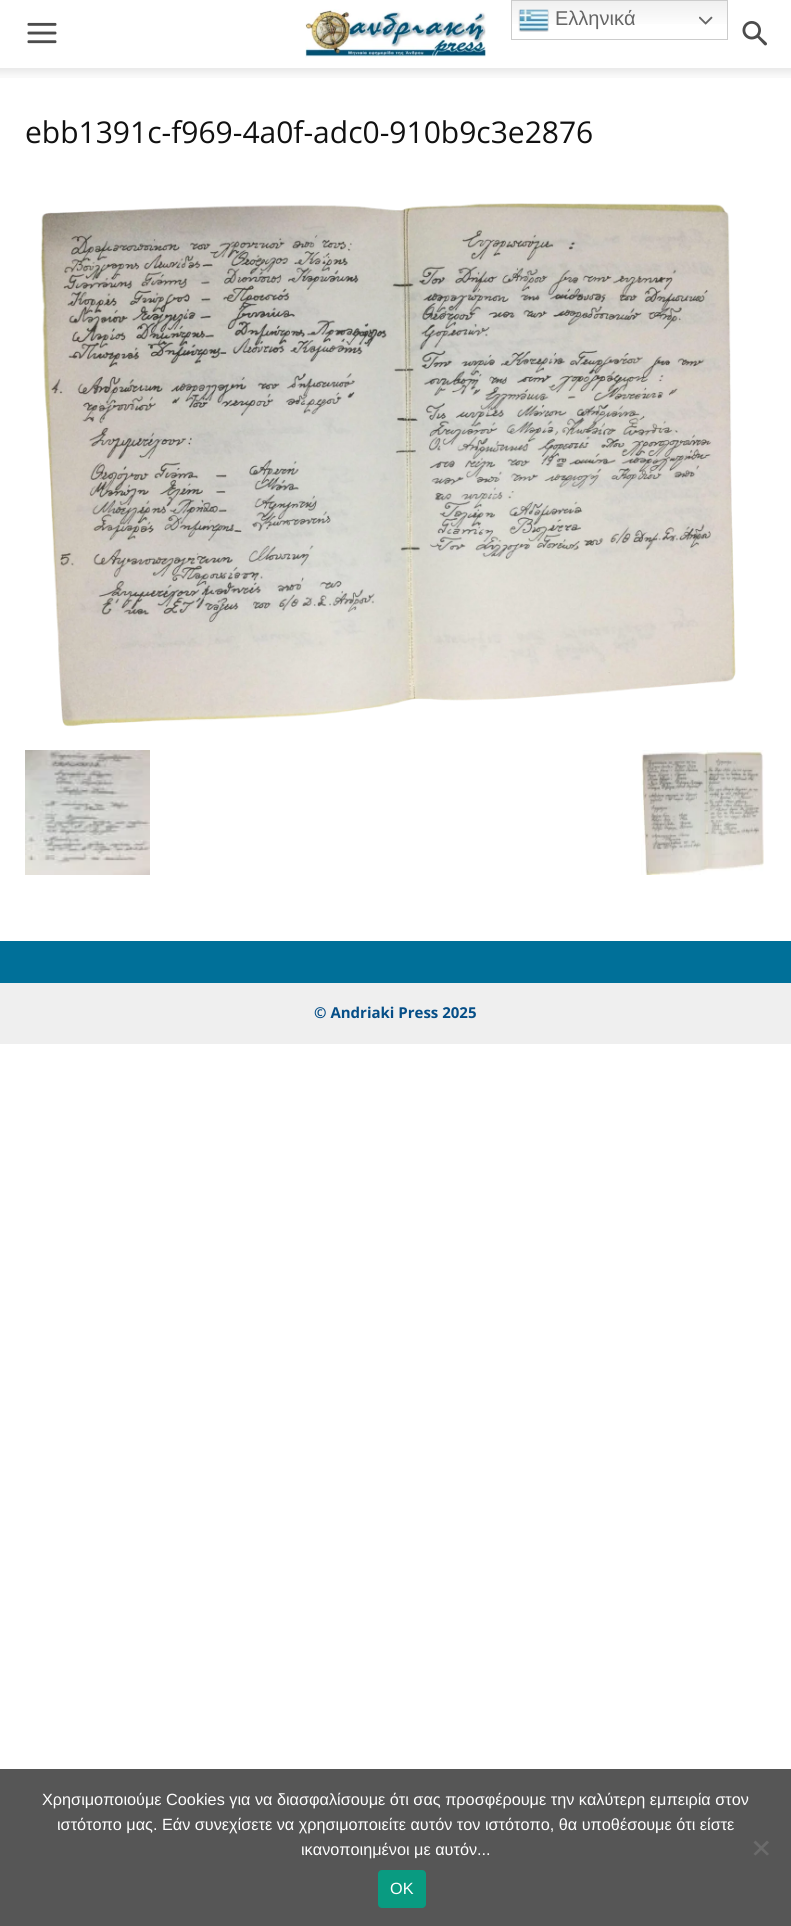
#include <cairo.h>
#include <math.h>
#include <stddef.h>


static void round_rect(cairo_t *cr, double x, double y, double w, double h, double r) {
    cairo_new_sub_path(cr);
    cairo_arc(cr, x + w - r, y + h - r, r, 0, M_PI / 2);
    cairo_arc(cr, x + r, y + h - r, r, M_PI / 2, M_PI);
    cairo_arc(cr, x + r, y + r, r, M_PI, 1.5 * M_PI);
    cairo_arc(cr, x + w - r, y + r, r, 1.5 * M_PI, 2 * M_PI);
    cairo_close_path(cr);
}

static void picture(cairo_t *cr, const char *path, double x, double y, double w, double h) {
    cairo_surface_t *image = cairo_image_surface_create_from_png(path);
    cairo_save(cr);
    cairo_set_source_surface(cr, image, x, y);
    cairo_rectangle(cr, x, y, w, h);
    cairo_fill(cr);
    cairo_restore(cr);
    cairo_surface_destroy(image);
}

int main(void) {
    cairo_surface_t *surface = cairo_image_surface_create(CAIRO_FORMAT_RGB24, 791, 1926);
    cairo_t *cr = cairo_create(surface);
    cairo_font_options_t *options = cairo_font_options_create();
    cairo_font_options_set_hint_metrics(options, CAIRO_HINT_METRICS_OFF);
    cairo_font_options_set_hint_style(options, CAIRO_HINT_STYLE_NONE);
    cairo_set_font_options(cr, options);
    cairo_set_miter_limit(cr, 4);
    cairo_pattern_t *gradient;
    cairo_set_source_rgb(cr, 1, 1, 1);
    cairo_paint(cr);
    gradient = cairo_pattern_create_linear(619, 0, 619, 40);
    cairo_pattern_add_color_stop_rgba(gradient, 0, 0.937, 0.937, 0.937, 1);
    cairo_pattern_add_color_stop_rgba(gradient, 0.7, 1, 1, 1, 1);
    cairo_set_source(cr, gradient);
    cairo_pattern_destroy(gradient);
    cairo_rectangle(cr, 512, 1, 215, 23);
    cairo_fill(cr);
    cairo_rectangle(cr, 511.5, 0.5, 216, 39);
    cairo_set_source_rgb(cr, 0.8, 0.8, 0.8);
    cairo_set_line_width(cr, 1);
    cairo_stroke(cr);
    picture(cr, "img1.png", 518, 9, 31, 23);
    cairo_select_font_face(cr, "Liberation Sans", CAIRO_FONT_SLANT_NORMAL, CAIRO_FONT_WEIGHT_NORMAL);
    cairo_set_font_size(cr, 20);
    cairo_set_source_rgb(cr, 0.4, 0.4, 0.4);
    cairo_move_to(cr, 555, 25);
    cairo_show_text(cr, "Ελληνικά");
    picture(cr, "img2.png", 699, 16, 14, 9);
    picture(cr, "img3.png", 27, 22, 30, 22);
    picture(cr, "img4.png", 305, 9, 181, 49);
    picture(cr, "img5.png", 742, 21, 25, 25);
    picture(cr, "img6.png", 0, 68, 791, 10);
    cairo_select_font_face(cr, "Open Sans", CAIRO_FONT_SLANT_NORMAL, CAIRO_FONT_WEIGHT_NORMAL);
    cairo_set_font_size(cr, 30);
    cairo_set_source_rgb(cr, 0.067, 0.067, 0.067);
    cairo_move_to(cr, 25, 143);
    cairo_show_text(cr, "ebb1391c-f969-4a0f-adc0-910b9c3e2876");
    picture(cr, "img7.png", 40, 203, 696, 524);
    picture(cr, "img8.png", 25, 750, 125, 125);
    picture(cr, "img9.png", 641, 750, 123, 125);
    cairo_set_source_rgb(cr, 0, 0.439, 0.6);
    cairo_rectangle(cr, 0, 941, 791, 42);
    cairo_fill(cr);
    cairo_set_source_rgb(cr, 0.937, 0.937, 0.937);
    cairo_rectangle(cr, 0, 983, 791, 61);
    cairo_fill(cr);
    cairo_select_font_face(cr, "Open Sans", CAIRO_FONT_SLANT_NORMAL, CAIRO_FONT_WEIGHT_BOLD);
    cairo_set_font_size(cr, 15);
    cairo_set_source_rgb(cr, 0.02, 0.306, 0.529);
    cairo_move_to(cr, 314, 1018);
    cairo_show_text(cr, "© Andriaki Press 2025");
    cairo_set_source_rgb(cr, 0.337, 0.337, 0.337);
    cairo_rectangle(cr, 0, 1769, 791, 157);
    cairo_fill(cr);
    cairo_select_font_face(cr, "Liberation Sans", CAIRO_FONT_SLANT_NORMAL, CAIRO_FONT_WEIGHT_NORMAL);
    cairo_set_font_size(cr, 16.25);
    cairo_set_source_rgb(cr, 1, 1, 1);
    cairo_move_to(cr, 42, 1805);
    cairo_show_text(cr, "Χρησιμοποιούμε Cookies για να διασφαλίσουμε ότι σας προσφέρουμε την καλύτερη εμπειρία στον");
    cairo_move_to(cr, 57, 1830);
    cairo_show_text(cr, "ιστότοπο μας. Εάν συνεχίσετε να χρησιμοποιείτε αυτόν τον ιστότοπο, θα υποθέσουμε ότι είστε");
    cairo_move_to(cr, 301, 1855);
    cairo_show_text(cr, "ικανοποιημένοι με αυτόν...");
    cairo_set_source_rgb(cr, 0.42, 0.42, 0.42);
    cairo_new_path(cr);
    cairo_move_to(cr, 767, 1840.5);
    cairo_line_to(cr, 769, 1842.5);
    cairo_line_to(cr, 755.5, 1855.5);
    cairo_line_to(cr, 753.5, 1854);
    cairo_close_path(cr);
    cairo_fill(cr);
    cairo_new_path(cr);
    cairo_move_to(cr, 753.5, 1842.5);
    cairo_line_to(cr, 755.5, 1840.5);
    cairo_line_to(cr, 769, 1854);
    cairo_line_to(cr, 767, 1855.5);
    cairo_close_path(cr);
    cairo_fill(cr);
    cairo_set_source_rgb(cr, 0.039, 0.608, 0.506);
    round_rect(cr, 378, 1870, 48, 38, 4);
    cairo_fill(cr);
    cairo_set_source_rgb(cr, 1, 1, 1);
    cairo_move_to(cr, 390, 1894);
    cairo_show_text(cr, "OK");
    cairo_surface_write_to_png(surface, "page.png");
    cairo_font_options_destroy(options);
    cairo_destroy(cr);
    cairo_surface_destroy(surface);
    return 0;
}
